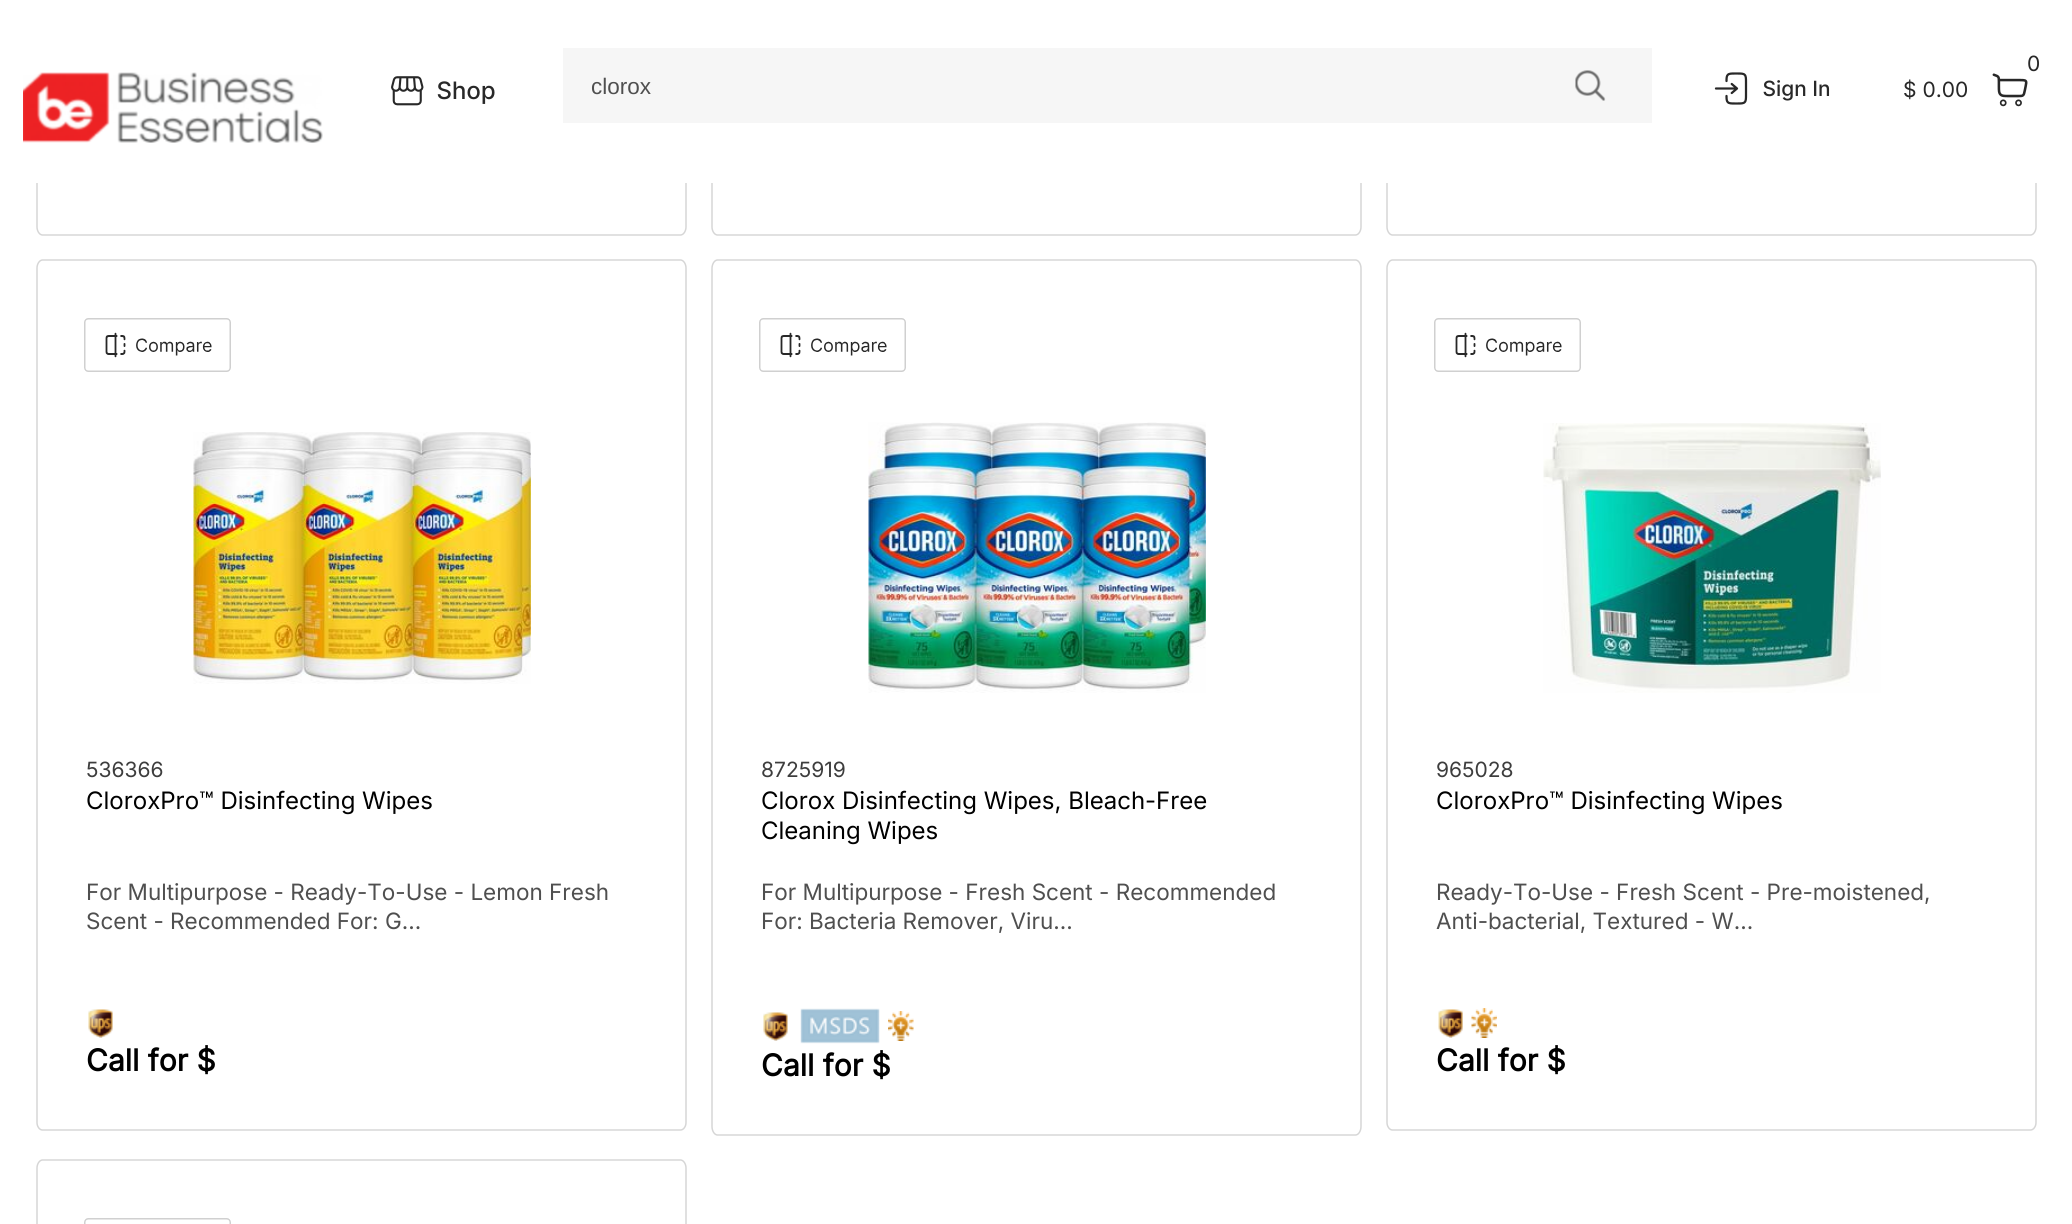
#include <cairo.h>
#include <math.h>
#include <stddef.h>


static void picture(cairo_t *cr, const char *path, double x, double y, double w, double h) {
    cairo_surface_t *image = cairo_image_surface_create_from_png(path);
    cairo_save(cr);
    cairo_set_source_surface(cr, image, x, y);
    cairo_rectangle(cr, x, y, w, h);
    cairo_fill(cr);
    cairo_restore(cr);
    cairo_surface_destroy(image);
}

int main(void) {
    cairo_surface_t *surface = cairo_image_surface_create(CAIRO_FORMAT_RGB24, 2072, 1224);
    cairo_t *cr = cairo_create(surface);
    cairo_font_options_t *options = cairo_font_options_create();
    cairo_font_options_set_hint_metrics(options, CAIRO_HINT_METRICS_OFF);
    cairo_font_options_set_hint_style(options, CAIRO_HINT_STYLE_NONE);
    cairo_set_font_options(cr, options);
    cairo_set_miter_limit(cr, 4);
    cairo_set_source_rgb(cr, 1, 1, 1);
    cairo_paint(cr);
    cairo_new_path(cr);
    cairo_move_to(cr, 42.5, -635);
    cairo_line_to(cr, 680.5, -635);
    cairo_curve_to(cr, 683.5, -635, 686, -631.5, 686, -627.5);
    cairo_line_to(cr, 686, 227);
    cairo_curve_to(cr, 686, 231, 683.5, 235, 680.5, 235);
    cairo_line_to(cr, 42.5, 235);
    cairo_curve_to(cr, 39.5, 235, 37, 231, 37, 227);
    cairo_line_to(cr, 37, -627.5);
    cairo_curve_to(cr, 37, -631.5, 39.5, -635, 42.5, -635);
    cairo_close_path(cr);
    cairo_set_source_rgb(cr, 0.839, 0.839, 0.839);
    cairo_set_line_width(cr, 1.5);
    cairo_stroke(cr);
    cairo_new_path(cr);
    cairo_move_to(cr, 717.5, -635);
    cairo_line_to(cr, 1355.5, -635);
    cairo_curve_to(cr, 1358.5, -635, 1361, -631.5, 1361, -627.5);
    cairo_line_to(cr, 1361, 227);
    cairo_curve_to(cr, 1361, 231, 1358.5, 235, 1355.5, 235);
    cairo_line_to(cr, 717.5, 235);
    cairo_curve_to(cr, 714.5, 235, 712, 231, 712, 227);
    cairo_line_to(cr, 712, -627.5);
    cairo_curve_to(cr, 712, -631.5, 714.5, -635, 717.5, -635);
    cairo_close_path(cr);
    cairo_stroke(cr);
    cairo_new_path(cr);
    cairo_move_to(cr, 1392.5, -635);
    cairo_line_to(cr, 2030.5, -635);
    cairo_curve_to(cr, 2033.5, -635, 2036, -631.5, 2036, -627.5);
    cairo_line_to(cr, 2036, 227);
    cairo_curve_to(cr, 2036, 231, 2033.5, 235, 2030.5, 235);
    cairo_line_to(cr, 1392.5, 235);
    cairo_curve_to(cr, 1389.5, 235, 1387, 231, 1387, 227);
    cairo_line_to(cr, 1387, -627.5);
    cairo_curve_to(cr, 1387, -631.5, 1389.5, -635, 1392.5, -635);
    cairo_close_path(cr);
    cairo_stroke(cr);
    cairo_set_source_rgb(cr, 1, 1, 1);
    cairo_rectangle(cr, 36, 0, 2001, 183);
    cairo_fill(cr);
    picture(cr, "img1.png", 23, 72, 300, 71);
    picture(cr, "img2.png", 391, 76, 104, 30);
    cairo_set_source_rgb(cr, 0.961, 0.961, 0.961);
    cairo_rectangle(cr, 563, 48, 1089, 75);
    cairo_fill(cr);
    cairo_select_font_face(cr, "Liberation Sans", CAIRO_FONT_SLANT_NORMAL, CAIRO_FONT_WEIGHT_NORMAL);
    cairo_set_font_size(cr, 22.5);
    cairo_set_source_rgb(cr, 0.31, 0.31, 0.31);
    cairo_move_to(cr, 591, 94);
    cairo_show_text(cr, "clorox");
    picture(cr, "img3.png", 1575, 70, 31, 31);
    picture(cr, "img4.png", 1714, 72, 116, 33);
    cairo_select_font_face(cr, "Inter", CAIRO_FONT_SLANT_NORMAL, CAIRO_FONT_WEIGHT_NORMAL);
    cairo_set_font_size(cr, 21);
    cairo_set_source_rgb(cr, 0.157, 0.157, 0.157);
    cairo_move_to(cr, 2027, 71);
    cairo_show_text(cr, "0");
    picture(cr, "img5.png", 1992, 73, 36, 34);
    cairo_move_to(cr, 1903, 97);
    cairo_show_text(cr, "$ 0.00");
    cairo_new_path(cr);
    cairo_move_to(cr, 42.5, 260);
    cairo_line_to(cr, 680.5, 260);
    cairo_curve_to(cr, 683.5, 260, 686, 264, 686, 268);
    cairo_line_to(cr, 686, 1122.5);
    cairo_curve_to(cr, 686, 1126.5, 683.5, 1130, 680.5, 1130);
    cairo_line_to(cr, 42.5, 1130);
    cairo_curve_to(cr, 39.5, 1130, 37, 1126.5, 37, 1122.5);
    cairo_line_to(cr, 37, 268);
    cairo_curve_to(cr, 37, 264, 39.5, 260, 42.5, 260);
    cairo_close_path(cr);
    cairo_set_source_rgb(cr, 0.839, 0.839, 0.839);
    cairo_stroke(cr);
    picture(cr, "img6.png", 84, 318, 147, 54);
    picture(cr, "img7.png", 193, 432, 338, 252);
    cairo_set_source_rgb(cr, 0.239, 0.239, 0.239);
    cairo_move_to(cr, 86, 777);
    cairo_show_text(cr, "536366");
    cairo_set_font_size(cr, 24);
    cairo_set_source_rgb(cr, 0, 0, 0);
    cairo_move_to(cr, 86, 809);
    cairo_show_text(cr, "CloroxPro™ Disinfecting Wipes");
    cairo_set_font_size(cr, 22.5);
    cairo_set_source_rgb(cr, 0.31, 0.31, 0.31);
    cairo_move_to(cr, 86, 900);
    cairo_show_text(cr, "For Multipurpose - Ready-To-Use - Lemon Fresh");
    cairo_move_to(cr, 86, 929);
    cairo_show_text(cr, "Scent - Recommended For: G...");
    picture(cr, "img8.png", 88, 1009, 25, 29);
    cairo_select_font_face(cr, "Inter", CAIRO_FONT_SLANT_NORMAL, CAIRO_FONT_WEIGHT_BOLD);
    cairo_set_font_size(cr, 30);
    cairo_set_source_rgb(cr, 0, 0, 0);
    cairo_move_to(cr, 86, 1071);
    cairo_show_text(cr, "Call for $");
    cairo_new_path(cr);
    cairo_move_to(cr, 717.5, 260);
    cairo_line_to(cr, 1355.5, 260);
    cairo_curve_to(cr, 1358.5, 260, 1361, 264, 1361, 268.5);
    cairo_line_to(cr, 1361, 1126.5);
    cairo_curve_to(cr, 1361, 1131, 1358.5, 1135, 1355.5, 1135);
    cairo_line_to(cr, 717.5, 1135);
    cairo_curve_to(cr, 714.5, 1135, 712, 1131, 712, 1126.5);
    cairo_line_to(cr, 712, 268.5);
    cairo_curve_to(cr, 712, 264, 714.5, 260, 717.5, 260);
    cairo_close_path(cr);
    cairo_set_source_rgb(cr, 0.839, 0.839, 0.839);
    cairo_stroke(cr);
    picture(cr, "img9.png", 759, 318, 147, 54);
    picture(cr, "img10.png", 868, 422, 338, 271);
    cairo_select_font_face(cr, "Inter", CAIRO_FONT_SLANT_NORMAL, CAIRO_FONT_WEIGHT_NORMAL);
    cairo_set_font_size(cr, 21);
    cairo_set_source_rgb(cr, 0.239, 0.239, 0.239);
    cairo_move_to(cr, 761, 777);
    cairo_show_text(cr, "8725919");
    cairo_set_font_size(cr, 24);
    cairo_set_source_rgb(cr, 0, 0, 0);
    cairo_move_to(cr, 761, 809);
    cairo_show_text(cr, "Clorox Disinfecting Wipes, Bleach-Free");
    cairo_move_to(cr, 761, 839);
    cairo_show_text(cr, "Cleaning Wipes");
    cairo_set_font_size(cr, 22.5);
    cairo_set_source_rgb(cr, 0.31, 0.31, 0.31);
    cairo_move_to(cr, 761, 900);
    cairo_show_text(cr, "For Multipurpose - Fresh Scent - Recommended");
    cairo_move_to(cr, 761, 929);
    cairo_show_text(cr, "For: Bacteria Remover, Viru...");
    picture(cr, "img8.png", 763, 1012, 25, 29);
    picture(cr, "img11.png", 800, 1008, 80, 36);
    picture(cr, "img12.png", 888, 1011, 26, 30);
    cairo_select_font_face(cr, "Inter", CAIRO_FONT_SLANT_NORMAL, CAIRO_FONT_WEIGHT_BOLD);
    cairo_set_font_size(cr, 30);
    cairo_set_source_rgb(cr, 0, 0, 0);
    cairo_move_to(cr, 761, 1076);
    cairo_show_text(cr, "Call for $");
    cairo_new_path(cr);
    cairo_move_to(cr, 1392.5, 260);
    cairo_line_to(cr, 2030.5, 260);
    cairo_curve_to(cr, 2033.5, 260, 2036, 264, 2036, 268);
    cairo_line_to(cr, 2036, 1122.5);
    cairo_curve_to(cr, 2036, 1126.5, 2033.5, 1130, 2030.5, 1130);
    cairo_line_to(cr, 1392.5, 1130);
    cairo_curve_to(cr, 1389.5, 1130, 1387, 1126.5, 1387, 1122.5);
    cairo_line_to(cr, 1387, 268);
    cairo_curve_to(cr, 1387, 264, 1389.5, 260, 1392.5, 260);
    cairo_close_path(cr);
    cairo_set_source_rgb(cr, 0.839, 0.839, 0.839);
    cairo_stroke(cr);
    picture(cr, "img13.png", 1434, 318, 147, 54);
    picture(cr, "img14.png", 1543, 423, 338, 270);
    cairo_select_font_face(cr, "Inter", CAIRO_FONT_SLANT_NORMAL, CAIRO_FONT_WEIGHT_NORMAL);
    cairo_set_font_size(cr, 21);
    cairo_set_source_rgb(cr, 0.239, 0.239, 0.239);
    cairo_move_to(cr, 1436, 777);
    cairo_show_text(cr, "965028");
    cairo_set_font_size(cr, 24);
    cairo_set_source_rgb(cr, 0, 0, 0);
    cairo_move_to(cr, 1436, 809);
    cairo_show_text(cr, "CloroxPro™ Disinfecting Wipes");
    cairo_set_font_size(cr, 22.5);
    cairo_set_source_rgb(cr, 0.31, 0.31, 0.31);
    cairo_move_to(cr, 1436, 900);
    cairo_show_text(cr, "Ready-To-Use - Fresh Scent - Pre-moistened,");
    cairo_move_to(cr, 1436, 929);
    cairo_show_text(cr, "Anti-bacterial, Textured - W...");
    picture(cr, "img15.png", 1438, 1009, 25, 29);
    picture(cr, "img16.png", 1471, 1008, 26, 30);
    cairo_select_font_face(cr, "Inter", CAIRO_FONT_SLANT_NORMAL, CAIRO_FONT_WEIGHT_BOLD);
    cairo_set_font_size(cr, 30);
    cairo_set_source_rgb(cr, 0, 0, 0);
    cairo_move_to(cr, 1436, 1071);
    cairo_show_text(cr, "Call for $");
    cairo_new_path(cr);
    cairo_move_to(cr, 42.5, 1160);
    cairo_line_to(cr, 680.5, 1160);
    cairo_curve_to(cr, 683.5, 1160, 686, 1164, 686, 1168);
    cairo_line_to(cr, 686, 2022.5);
    cairo_curve_to(cr, 686, 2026.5, 683.5, 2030, 680.5, 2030);
    cairo_line_to(cr, 42.5, 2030);
    cairo_curve_to(cr, 39.5, 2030, 37, 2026.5, 37, 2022.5);
    cairo_line_to(cr, 37, 1168);
    cairo_curve_to(cr, 37, 1164, 39.5, 1160, 42.5, 1160);
    cairo_close_path(cr);
    cairo_set_source_rgb(cr, 0.839, 0.839, 0.839);
    cairo_stroke(cr);
    picture(cr, "img17.png", 84, 1218, 147, 6);
    cairo_surface_write_to_png(surface, "page.png");
    cairo_font_options_destroy(options);
    cairo_destroy(cr);
    cairo_surface_destroy(surface);
    return 0;
}
